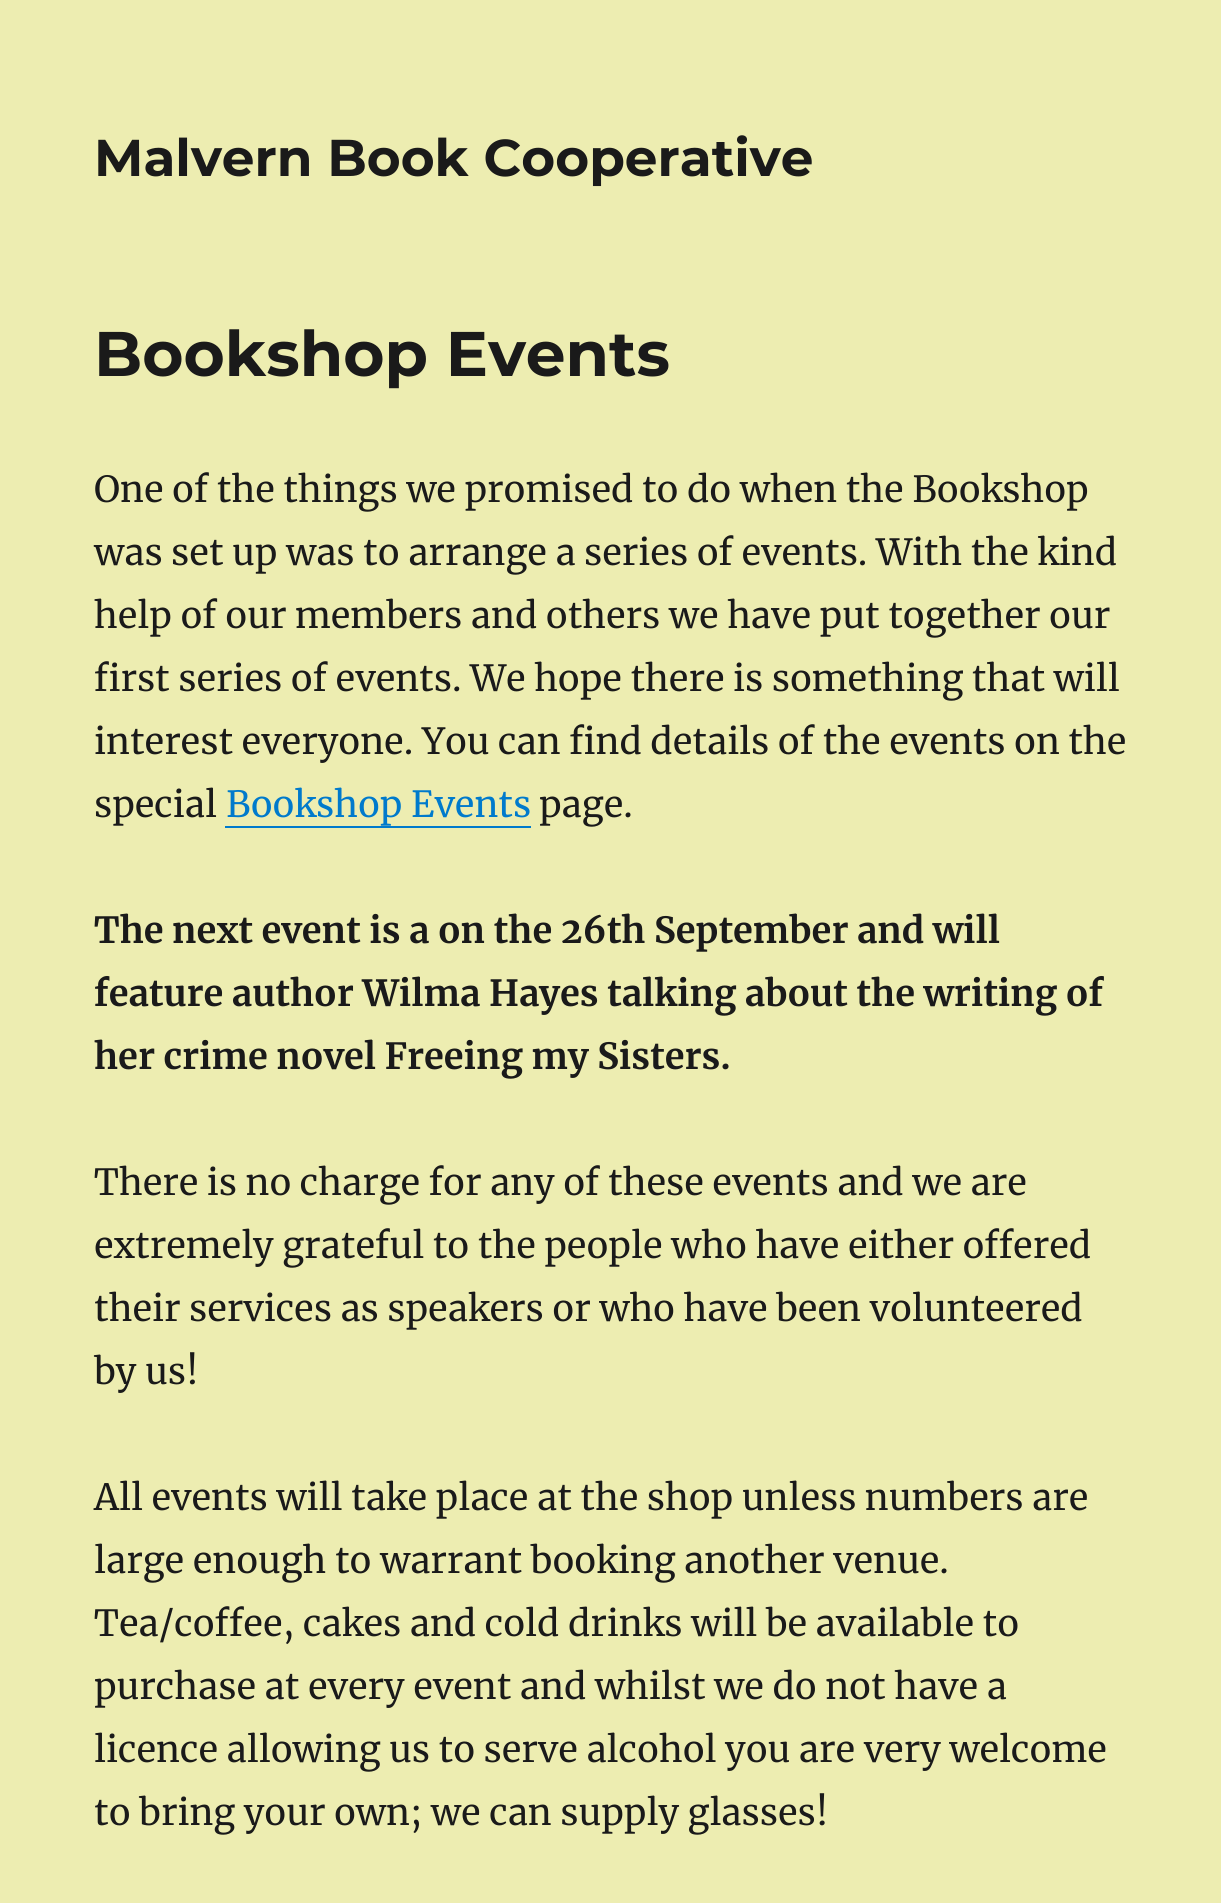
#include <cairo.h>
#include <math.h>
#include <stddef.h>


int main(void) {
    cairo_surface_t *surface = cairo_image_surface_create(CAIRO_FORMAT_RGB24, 1221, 1903);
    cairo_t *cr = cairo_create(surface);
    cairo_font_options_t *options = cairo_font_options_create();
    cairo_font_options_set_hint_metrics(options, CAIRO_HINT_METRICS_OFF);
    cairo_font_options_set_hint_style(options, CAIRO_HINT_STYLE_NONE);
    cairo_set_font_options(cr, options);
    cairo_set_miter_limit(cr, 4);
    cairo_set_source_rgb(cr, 0.929, 0.929, 0.694);
    cairo_paint(cr);
    cairo_select_font_face(cr, "Montserrat Thin", CAIRO_FONT_SLANT_NORMAL, CAIRO_FONT_WEIGHT_NORMAL);
    cairo_set_font_size(cr, 51.75);
    cairo_set_source_rgb(cr, 0.102, 0.102, 0.102);
    cairo_move_to(cr, 94, 176);
    cairo_show_text(cr, "Malvern Book Cooperative");
    cairo_set_font_size(cr, 63);
    cairo_move_to(cr, 94, 376);
    cairo_show_text(cr, "Bookshop Events");
    cairo_select_font_face(cr, "Merriweather", CAIRO_FONT_SLANT_NORMAL, CAIRO_FONT_WEIGHT_NORMAL);
    cairo_set_font_size(cr, 36);
    cairo_move_to(cr, 94, 502);
    cairo_show_text(cr, "One of the things we promised to do when the Bookshop");
    cairo_move_to(cr, 94, 565);
    cairo_show_text(cr, "was set up was to arrange a series of events. With the kind");
    cairo_move_to(cr, 94, 628);
    cairo_show_text(cr, "help of our members and others we have put together our");
    cairo_move_to(cr, 94, 691);
    cairo_show_text(cr, "first series of events. We hope there is something that will");
    cairo_move_to(cr, 94, 754);
    cairo_show_text(cr, "interest everyone. You can find details of the events on the");
    cairo_move_to(cr, 94, 817);
    cairo_show_text(cr, "special");
    cairo_set_source_rgb(cr, 0, 0.478, 0.8);
    cairo_move_to(cr, 226, 817);
    cairo_show_text(cr, "Bookshop Events");
    cairo_rectangle(cr, 225, 826, 306, 2);
    cairo_fill(cr);
    cairo_set_source_rgb(cr, 0.102, 0.102, 0.102);
    cairo_move_to(cr, 539, 817);
    cairo_show_text(cr, "page.");
    cairo_select_font_face(cr, "Merriweather", CAIRO_FONT_SLANT_NORMAL, CAIRO_FONT_WEIGHT_BOLD);
    cairo_move_to(cr, 94, 943);
    cairo_show_text(cr, "The next event is a on the 26th September and will");
    cairo_move_to(cr, 94, 1006);
    cairo_show_text(cr, "feature author Wilma Hayes talking about the writing of");
    cairo_move_to(cr, 94, 1069);
    cairo_show_text(cr, "her crime novel Freeing my Sisters.");
    cairo_select_font_face(cr, "Merriweather", CAIRO_FONT_SLANT_NORMAL, CAIRO_FONT_WEIGHT_NORMAL);
    cairo_move_to(cr, 94, 1195);
    cairo_show_text(cr, "There is no charge for any of these events and we are");
    cairo_move_to(cr, 94, 1258);
    cairo_show_text(cr, "extremely grateful to the people who have either offered");
    cairo_move_to(cr, 94, 1321);
    cairo_show_text(cr, "their services as speakers or who have been volunteered");
    cairo_move_to(cr, 94, 1384);
    cairo_show_text(cr, "by us!");
    cairo_move_to(cr, 94, 1510);
    cairo_show_text(cr, "All events will take place at the shop unless numbers are");
    cairo_move_to(cr, 94, 1573);
    cairo_show_text(cr, "large enough to warrant booking another venue.");
    cairo_move_to(cr, 94, 1636);
    cairo_show_text(cr, "Tea/coffee, cakes and cold drinks will be available to");
    cairo_move_to(cr, 94, 1699);
    cairo_show_text(cr, "purchase at every event and whilst we do not have a");
    cairo_move_to(cr, 94, 1762);
    cairo_show_text(cr, "licence allowing us to serve alcohol you are very welcome");
    cairo_move_to(cr, 94, 1825);
    cairo_show_text(cr, "to bring your own; we can supply glasses!");
    cairo_surface_write_to_png(surface, "page.png");
    cairo_font_options_destroy(options);
    cairo_destroy(cr);
    cairo_surface_destroy(surface);
    return 0;
}
